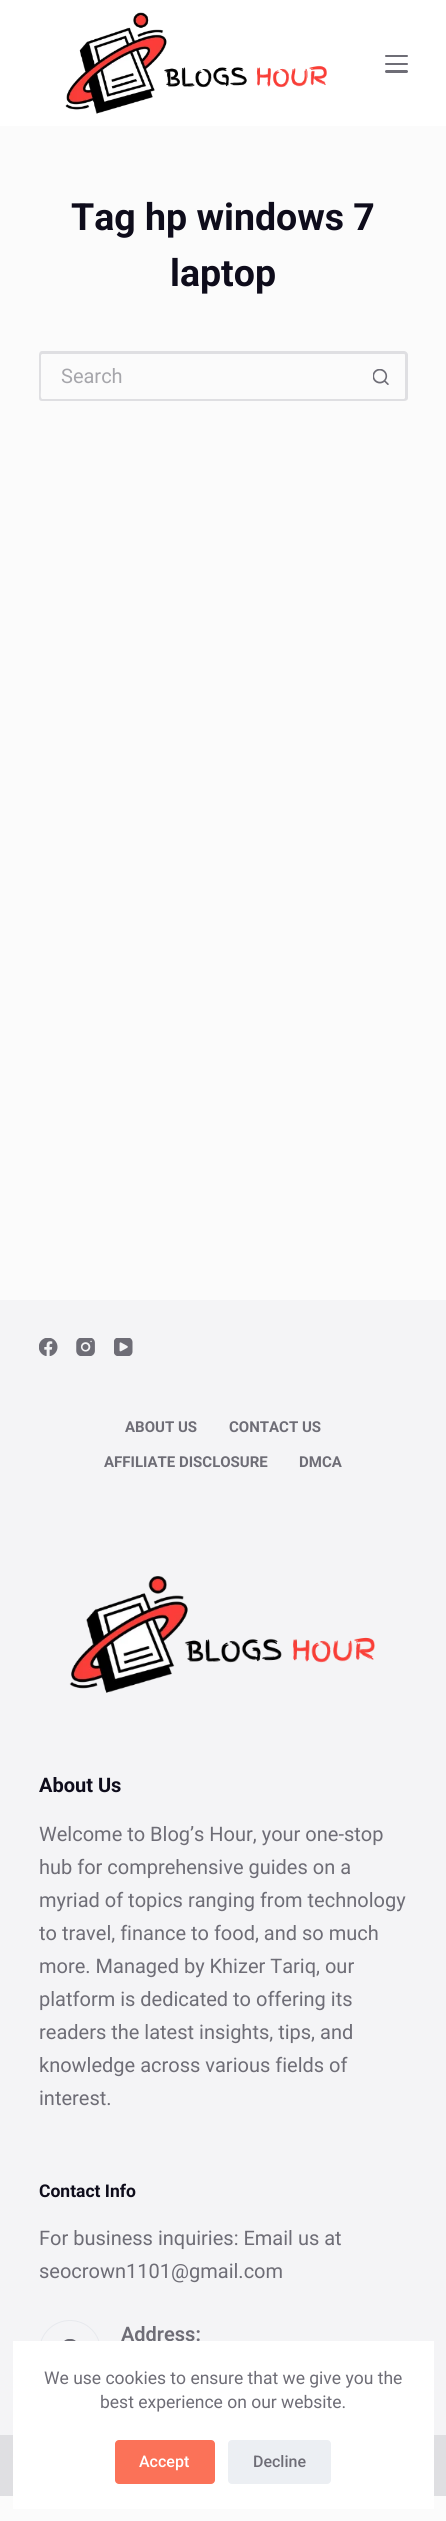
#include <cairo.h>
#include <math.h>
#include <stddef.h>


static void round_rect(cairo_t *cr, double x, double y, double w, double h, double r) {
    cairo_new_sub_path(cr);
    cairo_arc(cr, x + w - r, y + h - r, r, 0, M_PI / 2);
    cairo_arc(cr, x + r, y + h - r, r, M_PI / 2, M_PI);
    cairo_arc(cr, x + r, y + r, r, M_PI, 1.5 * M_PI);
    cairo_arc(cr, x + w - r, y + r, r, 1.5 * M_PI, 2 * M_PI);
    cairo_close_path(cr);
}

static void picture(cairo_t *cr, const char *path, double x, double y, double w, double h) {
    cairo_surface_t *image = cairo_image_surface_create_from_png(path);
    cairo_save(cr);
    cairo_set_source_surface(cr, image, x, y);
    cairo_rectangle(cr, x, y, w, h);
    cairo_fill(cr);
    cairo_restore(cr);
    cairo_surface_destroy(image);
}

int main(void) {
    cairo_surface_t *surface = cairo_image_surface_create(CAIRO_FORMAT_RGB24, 446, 2521);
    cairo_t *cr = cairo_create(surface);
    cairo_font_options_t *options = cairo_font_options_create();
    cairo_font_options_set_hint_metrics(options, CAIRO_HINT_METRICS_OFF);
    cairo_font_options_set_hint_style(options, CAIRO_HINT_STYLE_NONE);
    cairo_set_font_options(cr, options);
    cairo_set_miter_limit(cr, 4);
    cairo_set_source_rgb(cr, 0.984, 0.984, 0.984);
    cairo_paint(cr);
    cairo_set_source_rgb(cr, 1, 1, 1);
    cairo_rectangle(cr, 0, 0, 446, 126);
    cairo_fill(cr);
    picture(cr, "img1.png", 65, 12, 262, 102);
    cairo_set_source_rgb(cr, 0.431, 0.427, 0.463);
    round_rect(cr, 385, 55, 23, 2, 1);
    cairo_fill(cr);
    round_rect(cr, 385, 63, 23, 2, 1);
    cairo_fill(cr);
    round_rect(cr, 385, 70, 23, 3, 1.5);
    cairo_fill(cr);
    cairo_select_font_face(cr, "Roboto", CAIRO_FONT_SLANT_NORMAL, CAIRO_FONT_WEIGHT_BOLD);
    cairo_set_font_size(cr, 37.5);
    cairo_set_source_rgb(cr, 0.055, 0.047, 0.106);
    cairo_move_to(cr, 71, 230);
    cairo_show_text(cr, "Tag hp windows 7");
    cairo_move_to(cr, 170, 286);
    cairo_show_text(cr, "laptop");
    cairo_set_source_rgb(cr, 0.875, 0.875, 0.886);
    cairo_set_fill_rule(cr, CAIRO_FILL_RULE_EVEN_ODD);
    cairo_new_path(cr);
    cairo_move_to(cr, 42, 351);
    cairo_line_to(cr, 358, 351);
    cairo_line_to(cr, 358, 401);
    cairo_line_to(cr, 42, 401);
    cairo_curve_to(cr, 40, 401, 39, 400, 39, 398);
    cairo_line_to(cr, 39, 355);
    cairo_curve_to(cr, 39, 353, 40, 351, 42, 351);
    cairo_close_path(cr);
    cairo_move_to(cr, 42, 354);
    cairo_line_to(cr, 358, 354);
    cairo_line_to(cr, 358, 399);
    cairo_line_to(cr, 42, 399);
    cairo_curve_to(cr, 40, 397, 41, 393, 41, 390);
    cairo_line_to(cr, 41, 355);
    cairo_close_path(cr);
    cairo_fill(cr);
    cairo_select_font_face(cr, "Roboto", CAIRO_FONT_SLANT_NORMAL, CAIRO_FONT_WEIGHT_NORMAL);
    cairo_set_font_size(cr, 20);
    cairo_set_source_rgb(cr, 0.651, 0.651, 0.671);
    cairo_move_to(cr, 61, 383);
    cairo_show_text(cr, "Search");
    cairo_set_source_rgb(cr, 0.875, 0.875, 0.886);
    cairo_new_path(cr);
    cairo_move_to(cr, 358, 351);
    cairo_line_to(cr, 404, 351);
    cairo_curve_to(cr, 406, 351, 408, 353, 408, 355);
    cairo_line_to(cr, 408, 398);
    cairo_curve_to(cr, 408, 400, 406, 401, 404, 401);
    cairo_line_to(cr, 358, 401);
    cairo_close_path(cr);
    cairo_move_to(cr, 358, 354);
    cairo_line_to(cr, 404, 354);
    cairo_curve_to(cr, 404, 354, 405, 354, 405, 355);
    cairo_line_to(cr, 405, 398);
    cairo_curve_to(cr, 405, 398, 404, 399, 404, 399);
    cairo_line_to(cr, 358, 399);
    cairo_close_path(cr);
    cairo_fill(cr);
    picture(cr, "img2.png", 373, 369, 16, 16);
    cairo_set_source_rgb(cr, 0.957, 0.957, 0.961);
    cairo_rectangle(cr, 0, 1300, 446, 1135);
    cairo_fill(cr);
    picture(cr, "img3.png", 39, 1338, 19, 18);
    picture(cr, "img4.png", 76, 1338, 19, 18);
    picture(cr, "img5.png", 114, 1338, 19, 18);
    cairo_select_font_face(cr, "Roboto", CAIRO_FONT_SLANT_NORMAL, CAIRO_FONT_WEIGHT_BOLD);
    cairo_set_font_size(cr, 15);
    cairo_set_source_rgb(cr, 0.431, 0.427, 0.463);
    cairo_move_to(cr, 125, 1432);
    cairo_show_text(cr, "ABOUT US");
    cairo_move_to(cr, 229, 1432);
    cairo_show_text(cr, "CONTACT US");
    cairo_move_to(cr, 104, 1467);
    cairo_show_text(cr, "AFFILIATE DISCLOSURE");
    cairo_move_to(cr, 299, 1467);
    cairo_show_text(cr, "DMCA");
    picture(cr, "img6.png", 69, 1576, 306, 117);
    cairo_set_font_size(cr, 20);
    cairo_set_source_rgb(cr, 0.055, 0.047, 0.106);
    cairo_move_to(cr, 39, 1792);
    cairo_show_text(cr, "About Us");
    cairo_select_font_face(cr, "Roboto", CAIRO_FONT_SLANT_NORMAL, CAIRO_FONT_WEIGHT_NORMAL);
    cairo_set_source_rgb(cr, 0.431, 0.427, 0.463);
    cairo_move_to(cr, 39, 1841);
    cairo_show_text(cr, "Welcome to Blog’s Hour, your one-stop");
    cairo_move_to(cr, 39, 1874);
    cairo_show_text(cr, "hub for comprehensive guides on a");
    cairo_move_to(cr, 39, 1907);
    cairo_show_text(cr, "myriad of topics ranging from technology");
    cairo_move_to(cr, 39, 1940);
    cairo_show_text(cr, "to travel, finance to food, and so much");
    cairo_move_to(cr, 39, 1973);
    cairo_show_text(cr, "more. Managed by Khizer Tariq, our");
    cairo_move_to(cr, 39, 2006);
    cairo_show_text(cr, "platform is dedicated to offering its");
    cairo_move_to(cr, 39, 2039);
    cairo_show_text(cr, "readers the latest insights, tips, and");
    cairo_move_to(cr, 39, 2072);
    cairo_show_text(cr, "knowledge across various fields of");
    cairo_move_to(cr, 39, 2105);
    cairo_show_text(cr, "interest.");
    cairo_select_font_face(cr, "Roboto", CAIRO_FONT_SLANT_NORMAL, CAIRO_FONT_WEIGHT_BOLD);
    cairo_set_font_size(cr, 17.5);
    cairo_set_source_rgb(cr, 0.055, 0.047, 0.106);
    cairo_move_to(cr, 39, 2197);
    cairo_show_text(cr, "Contact Info");
    cairo_select_font_face(cr, "Roboto", CAIRO_FONT_SLANT_NORMAL, CAIRO_FONT_WEIGHT_NORMAL);
    cairo_set_font_size(cr, 20);
    cairo_set_source_rgb(cr, 0.431, 0.427, 0.463);
    cairo_move_to(cr, 39, 2245);
    cairo_show_text(cr, "For business inquiries: Email us at");
    cairo_move_to(cr, 39, 2278);
    cairo_show_text(cr, "seocrown1101@gmail.com");
    round_rect(cr, 39.5, 2320.5, 61, 62, 30.5);
    cairo_set_source_rgb(cr, 0.906, 0.914, 0.929);
    cairo_set_line_width(cr, 1);
    cairo_stroke(cr);
    picture(cr, "img7.png", 64, 2339, 12, 2);
    cairo_select_font_face(cr, "Roboto SemiBold", CAIRO_FONT_SLANT_NORMAL, CAIRO_FONT_WEIGHT_NORMAL);
    cairo_set_source_rgb(cr, 0.431, 0.427, 0.463);
    cairo_move_to(cr, 121, 2341);
    cairo_show_text(cr, "Address:");
    cairo_set_source_rgb(cr, 0.875, 0.875, 0.886);
    cairo_rectangle(cr, 0, 2435, 446, 61);
    cairo_fill(cr);
    cairo_set_source_rgb(cr, 1, 1, 1);
    cairo_rectangle(cr, 13, 2341, 421, 168);
    cairo_fill(cr);
    cairo_select_font_face(cr, "Roboto", CAIRO_FONT_SLANT_NORMAL, CAIRO_FONT_WEIGHT_NORMAL);
    cairo_set_font_size(cr, 17.5);
    cairo_set_source_rgb(cr, 0.431, 0.427, 0.463);
    cairo_move_to(cr, 44, 2384);
    cairo_show_text(cr, "We use cookies to ensure that we give you the");
    cairo_move_to(cr, 100, 2408);
    cairo_show_text(cr, "best experience on our website.");
    cairo_set_source_rgb(cr, 0.984, 0.447, 0.345);
    round_rect(cr, 115, 2440, 100, 44, 4);
    cairo_fill(cr);
    cairo_select_font_face(cr, "Roboto Medium", CAIRO_FONT_SLANT_NORMAL, CAIRO_FONT_WEIGHT_NORMAL);
    cairo_set_font_size(cr, 16);
    cairo_set_source_rgb(cr, 1, 1, 1);
    cairo_move_to(cr, 139, 2467);
    cairo_show_text(cr, "Accept");
    cairo_set_source_rgb(cr, 0.925, 0.937, 0.953);
    round_rect(cr, 228, 2440, 103, 44, 4);
    cairo_fill(cr);
    cairo_set_source_rgb(cr, 0.431, 0.427, 0.463);
    cairo_move_to(cr, 253, 2467);
    cairo_show_text(cr, "Decline");
    cairo_surface_write_to_png(surface, "page.png");
    cairo_font_options_destroy(options);
    cairo_destroy(cr);
    cairo_surface_destroy(surface);
    return 0;
}
